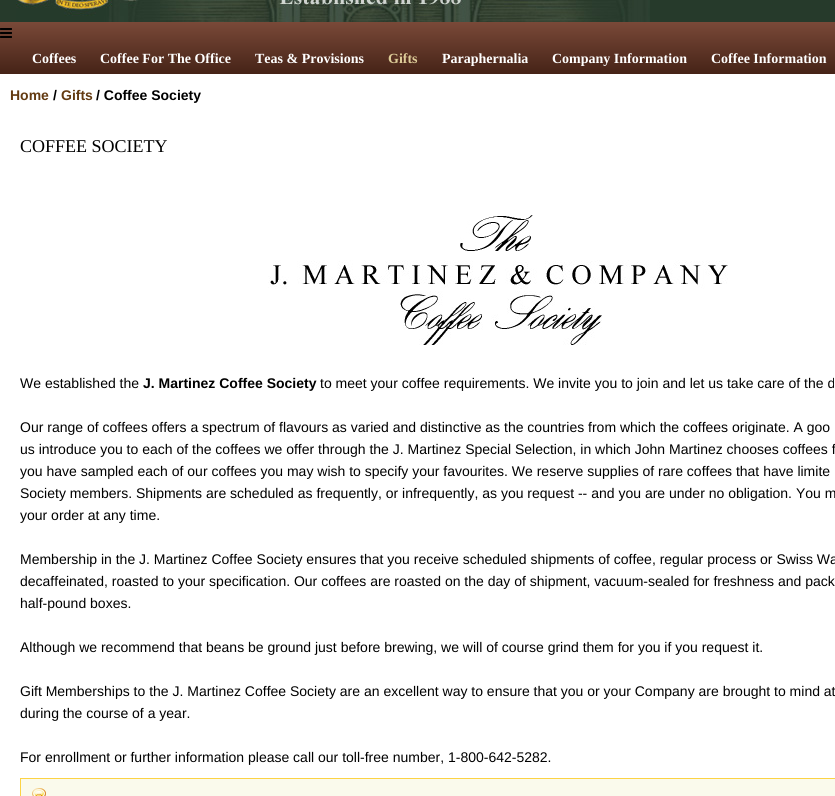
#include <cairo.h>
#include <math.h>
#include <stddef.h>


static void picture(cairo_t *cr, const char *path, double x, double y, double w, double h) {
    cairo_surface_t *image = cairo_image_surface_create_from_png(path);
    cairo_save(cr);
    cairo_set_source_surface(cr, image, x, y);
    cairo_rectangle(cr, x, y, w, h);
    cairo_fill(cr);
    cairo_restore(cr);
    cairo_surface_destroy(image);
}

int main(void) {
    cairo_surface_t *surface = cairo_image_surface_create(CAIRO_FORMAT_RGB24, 835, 796);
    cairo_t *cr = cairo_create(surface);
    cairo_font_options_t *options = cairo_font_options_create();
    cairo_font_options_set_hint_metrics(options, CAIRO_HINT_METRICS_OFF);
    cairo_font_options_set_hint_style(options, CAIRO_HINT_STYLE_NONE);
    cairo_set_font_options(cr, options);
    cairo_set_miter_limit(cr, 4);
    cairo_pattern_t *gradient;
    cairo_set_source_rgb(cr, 1, 1, 1);
    cairo_paint(cr);
    cairo_set_source_rgb(cr, 0.149, 0.227, 0.169);
    cairo_rectangle(cr, 0, 0, 835, 22);
    cairo_fill(cr);
    picture(cr, "img1.png", 16, 0, 634, 22);
    gradient = cairo_pattern_create_linear(0, 22, 0, 74);
    cairo_pattern_add_color_stop_rgba(gradient, 0, 0.478, 0.286, 0.22, 1);
    cairo_pattern_add_color_stop_rgba(gradient, 1, 0.271, 0.137, 0.09, 1);
    cairo_set_source(cr, gradient);
    cairo_pattern_destroy(gradient);
    cairo_rectangle(cr, 0, 22, 835, 52);
    cairo_fill(cr);
    picture(cr, "img2.png", 0, 28, 12, 10);
    cairo_select_font_face(cr, "Liberation Serif", CAIRO_FONT_SLANT_NORMAL, CAIRO_FONT_WEIGHT_BOLD);
    cairo_set_font_size(cr, 14);
    cairo_set_source_rgb(cr, 1, 1, 1);
    cairo_move_to(cr, 32, 63);
    cairo_show_text(cr, "Coffees");
    cairo_move_to(cr, 100, 63);
    cairo_show_text(cr, "Coffee For The Office");
    cairo_move_to(cr, 255, 63);
    cairo_show_text(cr, "Teas & Provisions");
    cairo_set_source_rgb(cr, 0.867, 0.8, 0.596);
    cairo_move_to(cr, 388, 63);
    cairo_show_text(cr, "Gifts");
    cairo_set_source_rgb(cr, 1, 1, 1);
    cairo_move_to(cr, 442, 63);
    cairo_show_text(cr, "Paraphernalia");
    cairo_move_to(cr, 552, 63);
    cairo_show_text(cr, "Company Information");
    cairo_move_to(cr, 711, 63);
    cairo_show_text(cr, "Coffee Information");
    cairo_select_font_face(cr, "Liberation Sans", CAIRO_FONT_SLANT_NORMAL, CAIRO_FONT_WEIGHT_BOLD);
    cairo_set_source_rgb(cr, 0.388, 0.227, 0.067);
    cairo_move_to(cr, 10, 100);
    cairo_show_text(cr, "Home");
    cairo_set_source_rgb(cr, 0, 0, 0);
    cairo_move_to(cr, 53, 100);
    cairo_show_text(cr, "/");
    cairo_set_source_rgb(cr, 0.388, 0.227, 0.067);
    cairo_move_to(cr, 61, 100);
    cairo_show_text(cr, "Gifts");
    cairo_set_source_rgb(cr, 0, 0, 0);
    cairo_move_to(cr, 96, 100);
    cairo_show_text(cr, "/ Coffee Society");
    cairo_select_font_face(cr, "Liberation Serif", CAIRO_FONT_SLANT_NORMAL, CAIRO_FONT_WEIGHT_NORMAL);
    cairo_set_font_size(cr, 18);
    cairo_move_to(cr, 20, 152);
    cairo_show_text(cr, "COFFEE SOCIETY");
    picture(cr, "img3.png", 460, 215, 73, 36);
    picture(cr, "img4.png", 268, 260, 460, 29);
    picture(cr, "img5.png", 400, 291, 202, 54);
    cairo_select_font_face(cr, "Liberation Sans", CAIRO_FONT_SLANT_NORMAL, CAIRO_FONT_WEIGHT_NORMAL);
    cairo_set_font_size(cr, 14);
    cairo_move_to(cr, 20, 388);
    cairo_show_text(cr, "We established the");
    cairo_select_font_face(cr, "Liberation Sans", CAIRO_FONT_SLANT_NORMAL, CAIRO_FONT_WEIGHT_BOLD);
    cairo_move_to(cr, 143, 388);
    cairo_show_text(cr, "J. Martinez Coffee Society");
    cairo_select_font_face(cr, "Liberation Sans", CAIRO_FONT_SLANT_NORMAL, CAIRO_FONT_WEIGHT_NORMAL);
    cairo_move_to(cr, 320, 388);
    cairo_show_text(cr, "to meet your coffee requirements. We invite you to join and let us take care of the d");
    cairo_move_to(cr, 20, 432);
    cairo_show_text(cr, "Our range of coffees offers a spectrum of flavours as varied and distinctive as the countries from which the coffees originate. A goo");
    cairo_move_to(cr, 20, 454);
    cairo_show_text(cr, "us introduce you to each of the coffees we offer through the J. Martinez Special Selection, in which John Martinez chooses coffees f");
    cairo_move_to(cr, 20, 476);
    cairo_show_text(cr, "you have sampled each of our coffees you may wish to specify your favourites. We reserve supplies of rare coffees that have limite");
    cairo_move_to(cr, 20, 498);
    cairo_show_text(cr, "Society members. Shipments are scheduled as frequently, or infrequently, as you request -- and you are under no obligation. You m");
    cairo_move_to(cr, 20, 520);
    cairo_show_text(cr, "your order at any time.");
    cairo_move_to(cr, 20, 564);
    cairo_show_text(cr, "Membership in the J. Martinez Coffee Society ensures that you receive scheduled shipments of coffee, regular process or Swiss Wa");
    cairo_move_to(cr, 20, 586);
    cairo_show_text(cr, "decaffeinated, roasted to your specification. Our coffees are roasted on the day of shipment, vacuum-sealed for freshness and pack");
    cairo_move_to(cr, 20, 608);
    cairo_show_text(cr, "half-pound boxes.");
    cairo_move_to(cr, 20, 652);
    cairo_show_text(cr, "Although we recommend that beans be ground just before brewing, we will of course grind them for you if you request it.");
    cairo_move_to(cr, 20, 696);
    cairo_show_text(cr, "Gift Memberships to the J. Martinez Coffee Society are an excellent way to ensure that you or your Company are brought to mind at");
    cairo_move_to(cr, 20, 718);
    cairo_show_text(cr, "during the course of a year.");
    cairo_move_to(cr, 20, 762);
    cairo_show_text(cr, "For enrollment or further information please call our toll-free number, 1-800-642-5282.");
    cairo_set_source_rgb(cr, 0.98, 0.98, 0.925);
    cairo_rectangle(cr, 21, 779, 814, 17);
    cairo_fill(cr);
    picture(cr, "img6.png", 32, 788, 14, 8);
    cairo_rectangle(cr, 20.5, 778.5, 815, 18);
    cairo_set_source_rgb(cr, 0.988, 0.827, 0.267);
    cairo_set_line_width(cr, 1);
    cairo_stroke(cr);
    cairo_surface_write_to_png(surface, "page.png");
    cairo_font_options_destroy(options);
    cairo_destroy(cr);
    cairo_surface_destroy(surface);
    return 0;
}
